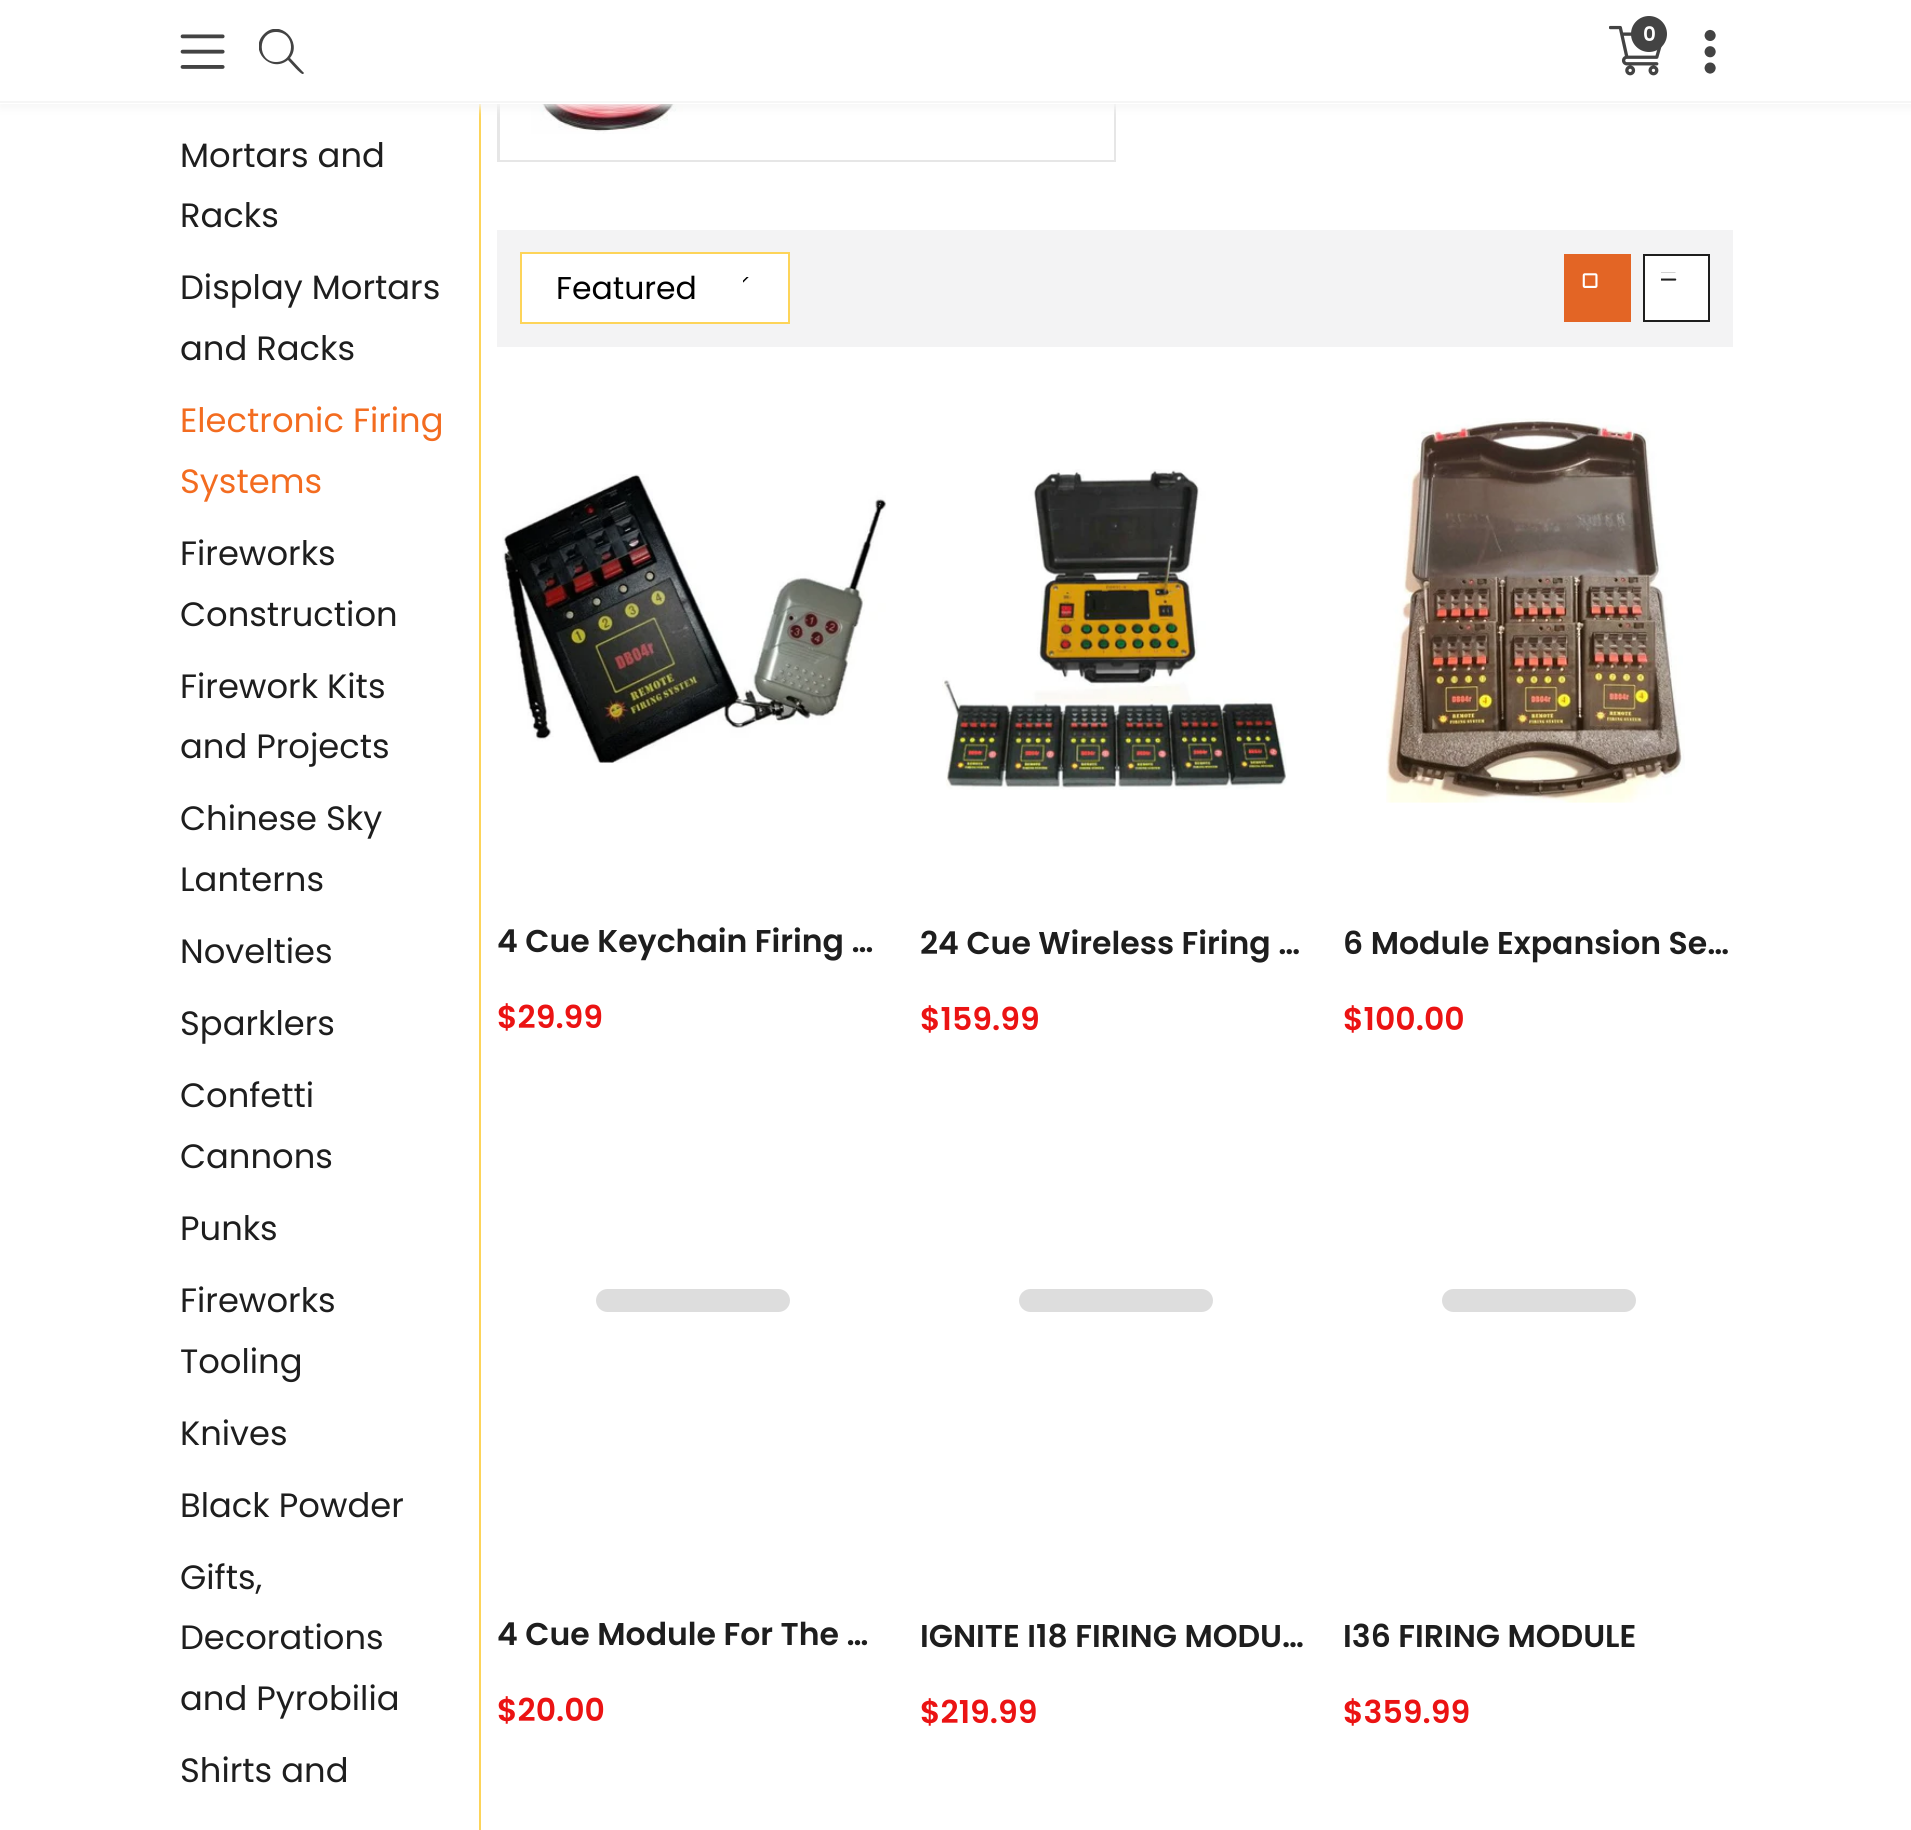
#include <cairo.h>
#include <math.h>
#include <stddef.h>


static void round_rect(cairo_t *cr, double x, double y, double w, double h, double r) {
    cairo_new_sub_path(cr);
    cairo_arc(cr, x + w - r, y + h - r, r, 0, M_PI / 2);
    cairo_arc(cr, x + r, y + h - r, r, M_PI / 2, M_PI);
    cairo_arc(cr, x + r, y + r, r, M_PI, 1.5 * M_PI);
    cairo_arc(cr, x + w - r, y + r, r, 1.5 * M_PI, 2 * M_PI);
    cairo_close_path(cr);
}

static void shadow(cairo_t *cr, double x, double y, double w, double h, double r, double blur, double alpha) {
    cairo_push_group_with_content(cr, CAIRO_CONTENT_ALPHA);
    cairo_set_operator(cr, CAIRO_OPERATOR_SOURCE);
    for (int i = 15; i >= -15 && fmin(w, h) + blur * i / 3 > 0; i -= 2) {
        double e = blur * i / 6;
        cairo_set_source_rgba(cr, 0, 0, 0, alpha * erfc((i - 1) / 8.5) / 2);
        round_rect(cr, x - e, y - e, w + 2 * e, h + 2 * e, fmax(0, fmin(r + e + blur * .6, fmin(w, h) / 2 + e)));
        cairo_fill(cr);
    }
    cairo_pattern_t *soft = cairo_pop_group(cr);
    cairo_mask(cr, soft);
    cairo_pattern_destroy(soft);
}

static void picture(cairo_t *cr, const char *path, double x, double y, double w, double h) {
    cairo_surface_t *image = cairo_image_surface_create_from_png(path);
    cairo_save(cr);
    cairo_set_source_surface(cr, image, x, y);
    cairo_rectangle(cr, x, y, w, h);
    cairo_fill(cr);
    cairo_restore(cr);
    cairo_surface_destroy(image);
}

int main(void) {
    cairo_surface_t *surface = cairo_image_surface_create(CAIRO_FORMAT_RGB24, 1911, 1830);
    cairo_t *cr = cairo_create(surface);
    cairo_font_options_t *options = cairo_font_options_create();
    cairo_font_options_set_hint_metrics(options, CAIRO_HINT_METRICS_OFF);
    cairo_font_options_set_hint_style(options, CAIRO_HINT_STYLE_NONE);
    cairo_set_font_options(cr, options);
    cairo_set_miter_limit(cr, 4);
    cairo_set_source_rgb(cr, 1, 1, 1);
    cairo_paint(cr);
    cairo_set_source_rgb(cr, 0.992, 0.831, 0.349);
    cairo_rectangle(cr, 479, 104, 2, 1726);
    cairo_fill(cr);
    cairo_set_source_rgb(cr, 0.902, 0.902, 0.902);
    cairo_new_path(cr);
    cairo_move_to(cr, 497, 162);
    cairo_line_to(cr, 497, -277);
    cairo_line_to(cr, 500, -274);
    cairo_line_to(cr, 500, 162);
    cairo_close_path(cr);
    cairo_fill(cr);
    cairo_new_path(cr);
    cairo_move_to(cr, 1116, -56);
    cairo_line_to(cr, 1116, 162);
    cairo_line_to(cr, 1114, 160);
    cairo_line_to(cr, 1114, -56);
    cairo_close_path(cr);
    cairo_fill(cr);
    picture(cr, "img4.png", 531, 104, 152, 30);
    cairo_set_source_rgb(cr, 0.961, 0.961, 0.961);
    shadow(cr, 0, 5, 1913, 103, 0, 4.5, 1);
    cairo_set_source_rgb(cr, 1, 1, 1);
    cairo_rectangle(cr, 0, 0, 1911, 104);
    cairo_fill(cr);
    cairo_set_source_rgb(cr, 0.961, 0.961, 0.961);
    cairo_rectangle(cr, 0, 101, 1911, 2);
    cairo_fill(cr);
    picture(cr, "img1.png", 180, 34, 45, 35);
    cairo_save(cr);
    cairo_rectangle(cr, 259, 29, 45, 45);
    cairo_clip(cr);
    cairo_set_source_rgb(cr, 0.263, 0.263, 0.263);
    cairo_new_path(cr);
    cairo_move_to(cr, 303, 72);
    cairo_line_to(cr, 290, 58);
    cairo_curve_to(cr, 303, 42, 280, 18, 264, 34);
    cairo_curve_to(cr, 248, 50, 271, 74, 288, 60);
    cairo_curve_to(cr, 290, 62, 301, 75, 303, 74);
    cairo_curve_to(cr, 304, 74, 304, 72, 303, 72);
    cairo_close_path(cr);
    cairo_move_to(cr, 276, 62);
    cairo_curve_to(cr, 257, 62, 257, 32, 276, 32);
    cairo_curve_to(cr, 296, 32, 296, 62, 276, 62);
    cairo_close_path(cr);
    cairo_fill(cr);
    cairo_restore(cr);
    picture(cr, "img2.png", 1609, 25, 53, 51);
    cairo_set_source_rgb(cr, 0.263, 0.263, 0.263);
    cairo_arc(cr, 1649, 34, 18, 0, 2 * M_PI);
    cairo_fill(cr);
    cairo_select_font_face(cr, "Poppins SemiBold", CAIRO_FONT_SLANT_NORMAL, CAIRO_FONT_WEIGHT_NORMAL);
    cairo_set_font_size(cr, 20);
    cairo_set_source_rgb(cr, 1, 1, 1);
    cairo_move_to(cr, 1643, 41);
    cairo_show_text(cr, "0");
    picture(cr, "img3.png", 1704, 29, 12, 45);
    cairo_select_font_face(cr, "Poppins", CAIRO_FONT_SLANT_NORMAL, CAIRO_FONT_WEIGHT_NORMAL);
    cairo_set_font_size(cr, 33.75);
    cairo_set_source_rgb(cr, 0.118, 0.118, 0.118);
    cairo_move_to(cr, 180, 167);
    cairo_show_text(cr, "Mortars and");
    cairo_move_to(cr, 180, 227);
    cairo_show_text(cr, "Racks");
    cairo_move_to(cr, 180, 299);
    cairo_show_text(cr, "Display Mortars");
    cairo_move_to(cr, 180, 360);
    cairo_show_text(cr, "and Racks");
    cairo_set_source_rgb(cr, 0.953, 0.424, 0.125);
    cairo_move_to(cr, 180, 432);
    cairo_show_text(cr, "Electronic Firing");
    cairo_move_to(cr, 180, 493);
    cairo_show_text(cr, "Systems");
    cairo_set_source_rgb(cr, 0.118, 0.118, 0.118);
    cairo_move_to(cr, 180, 565);
    cairo_show_text(cr, "Fireworks");
    cairo_move_to(cr, 180, 626);
    cairo_show_text(cr, "Construction");
    cairo_move_to(cr, 180, 698);
    cairo_show_text(cr, "Firework Kits");
    cairo_move_to(cr, 180, 758);
    cairo_show_text(cr, "and Projects");
    cairo_move_to(cr, 180, 830);
    cairo_show_text(cr, "Chinese Sky");
    cairo_move_to(cr, 180, 891);
    cairo_show_text(cr, "Lanterns");
    cairo_move_to(cr, 180, 963);
    cairo_show_text(cr, "Novelties");
    cairo_move_to(cr, 180, 1035);
    cairo_show_text(cr, "Sparklers");
    cairo_move_to(cr, 180, 1107);
    cairo_show_text(cr, "Confetti");
    cairo_move_to(cr, 180, 1168);
    cairo_show_text(cr, "Cannons");
    cairo_move_to(cr, 180, 1240);
    cairo_show_text(cr, "Punks");
    cairo_move_to(cr, 180, 1312);
    cairo_show_text(cr, "Fireworks");
    cairo_move_to(cr, 180, 1373);
    cairo_show_text(cr, "Tooling");
    cairo_move_to(cr, 180, 1445);
    cairo_show_text(cr, "Knives");
    cairo_move_to(cr, 180, 1517);
    cairo_show_text(cr, "Black Powder");
    cairo_move_to(cr, 180, 1589);
    cairo_show_text(cr, "Gifts,");
    cairo_move_to(cr, 180, 1649);
    cairo_show_text(cr, "Decorations");
    cairo_move_to(cr, 180, 1710);
    cairo_show_text(cr, "and Pyrobilia");
    cairo_move_to(cr, 180, 1782);
    cairo_show_text(cr, "Shirts and");
    cairo_set_source_rgba(cr, 0, 0, 0, 0.1);
    cairo_new_path(cr);
    cairo_move_to(cr, 1116, 162);
    cairo_line_to(cr, 500, 162);
    cairo_line_to(cr, 500, 160);
    cairo_line_to(cr, 1114, 160);
    cairo_close_path(cr);
    cairo_fill(cr);
    cairo_set_source_rgb(cr, 0.953, 0.953, 0.957);
    cairo_rectangle(cr, 497, 230, 1236, 117);
    cairo_fill(cr);
    cairo_set_source_rgb(cr, 1, 1, 1);
    cairo_rectangle(cr, 521, 253, 268, 70);
    cairo_fill_preserve(cr);
    cairo_set_source_rgb(cr, 0.992, 0.831, 0.349);
    cairo_stroke(cr);
    cairo_set_font_size(cr, 31.5);
    cairo_set_source_rgb(cr, 0, 0, 0);
    cairo_move_to(cr, 556, 299);
    cairo_show_text(cr, "Featured");
    picture(cr, "img5.png", 743, 277, 6, 6);
    cairo_set_source_rgb(cr, 0.89, 0.396, 0.145);
    cairo_rectangle(cr, 1564, 254, 67, 68);
    cairo_fill(cr);
    picture(cr, "img6.png", 1582, 273, 16, 15);
    cairo_set_source_rgb(cr, 1, 1, 1);
    cairo_rectangle(cr, 1644, 255, 65, 66);
    cairo_fill_preserve(cr);
    cairo_set_source_rgb(cr, 0.118, 0.118, 0.118);
    cairo_stroke(cr);
    picture(cr, "img7.png", 1661, 272, 16, 9);
    picture(cr, "img8.png", 502, 474, 385, 289);
    cairo_select_font_face(cr, "Poppins SemiBold", CAIRO_FONT_SLANT_NORMAL, CAIRO_FONT_WEIGHT_NORMAL);
    cairo_move_to(cr, 497, 952);
    cairo_show_text(cr, "4 Cue Keychain Firing …");
    cairo_set_source_rgb(cr, 0.918, 0.075, 0.075);
    cairo_move_to(cr, 497, 1028);
    cairo_show_text(cr, "$29.99");
    picture(cr, "img9.png", 942, 469, 345, 321);
    cairo_set_source_rgb(cr, 0.118, 0.118, 0.118);
    cairo_move_to(cr, 920, 954);
    cairo_show_text(cr, "24 Cue Wireless Firing …");
    cairo_set_source_rgb(cr, 0.918, 0.075, 0.075);
    cairo_move_to(cr, 920, 1030);
    cairo_show_text(cr, "$159.99");
    picture(cr, "img10.png", 1386, 418, 299, 385);
    cairo_set_source_rgb(cr, 0.118, 0.118, 0.118);
    cairo_move_to(cr, 1343, 954);
    cairo_show_text(cr, "6 Module Expansion Se…");
    cairo_set_source_rgb(cr, 0.918, 0.075, 0.075);
    cairo_move_to(cr, 1343, 1030);
    cairo_show_text(cr, "$100.00");
    cairo_set_source_rgb(cr, 0.867, 0.867, 0.867);
    round_rect(cr, 596, 1289, 194, 23, 11.5);
    cairo_fill(cr);
    cairo_set_source_rgb(cr, 0.118, 0.118, 0.118);
    cairo_move_to(cr, 497, 1645);
    cairo_show_text(cr, "4 Cue Module For The …");
    cairo_set_source_rgb(cr, 0.918, 0.075, 0.075);
    cairo_move_to(cr, 497, 1721);
    cairo_show_text(cr, "$20.00");
    cairo_set_source_rgb(cr, 0.867, 0.867, 0.867);
    round_rect(cr, 1019, 1289, 194, 23, 11.5);
    cairo_fill(cr);
    cairo_set_source_rgb(cr, 0.118, 0.118, 0.118);
    cairo_move_to(cr, 920, 1647);
    cairo_show_text(cr, "IGNITE I18 FIRING MODU…");
    cairo_set_source_rgb(cr, 0.918, 0.075, 0.075);
    cairo_move_to(cr, 920, 1723);
    cairo_show_text(cr, "$219.99");
    cairo_set_source_rgb(cr, 0.867, 0.867, 0.867);
    round_rect(cr, 1442, 1289, 194, 23, 11.5);
    cairo_fill(cr);
    cairo_set_source_rgb(cr, 0.118, 0.118, 0.118);
    cairo_move_to(cr, 1343, 1647);
    cairo_show_text(cr, "I36 FIRING MODULE");
    cairo_set_source_rgb(cr, 0.918, 0.075, 0.075);
    cairo_move_to(cr, 1343, 1723);
    cairo_show_text(cr, "$359.99");
    cairo_surface_write_to_png(surface, "page.png");
    cairo_font_options_destroy(options);
    cairo_destroy(cr);
    cairo_surface_destroy(surface);
    return 0;
}
